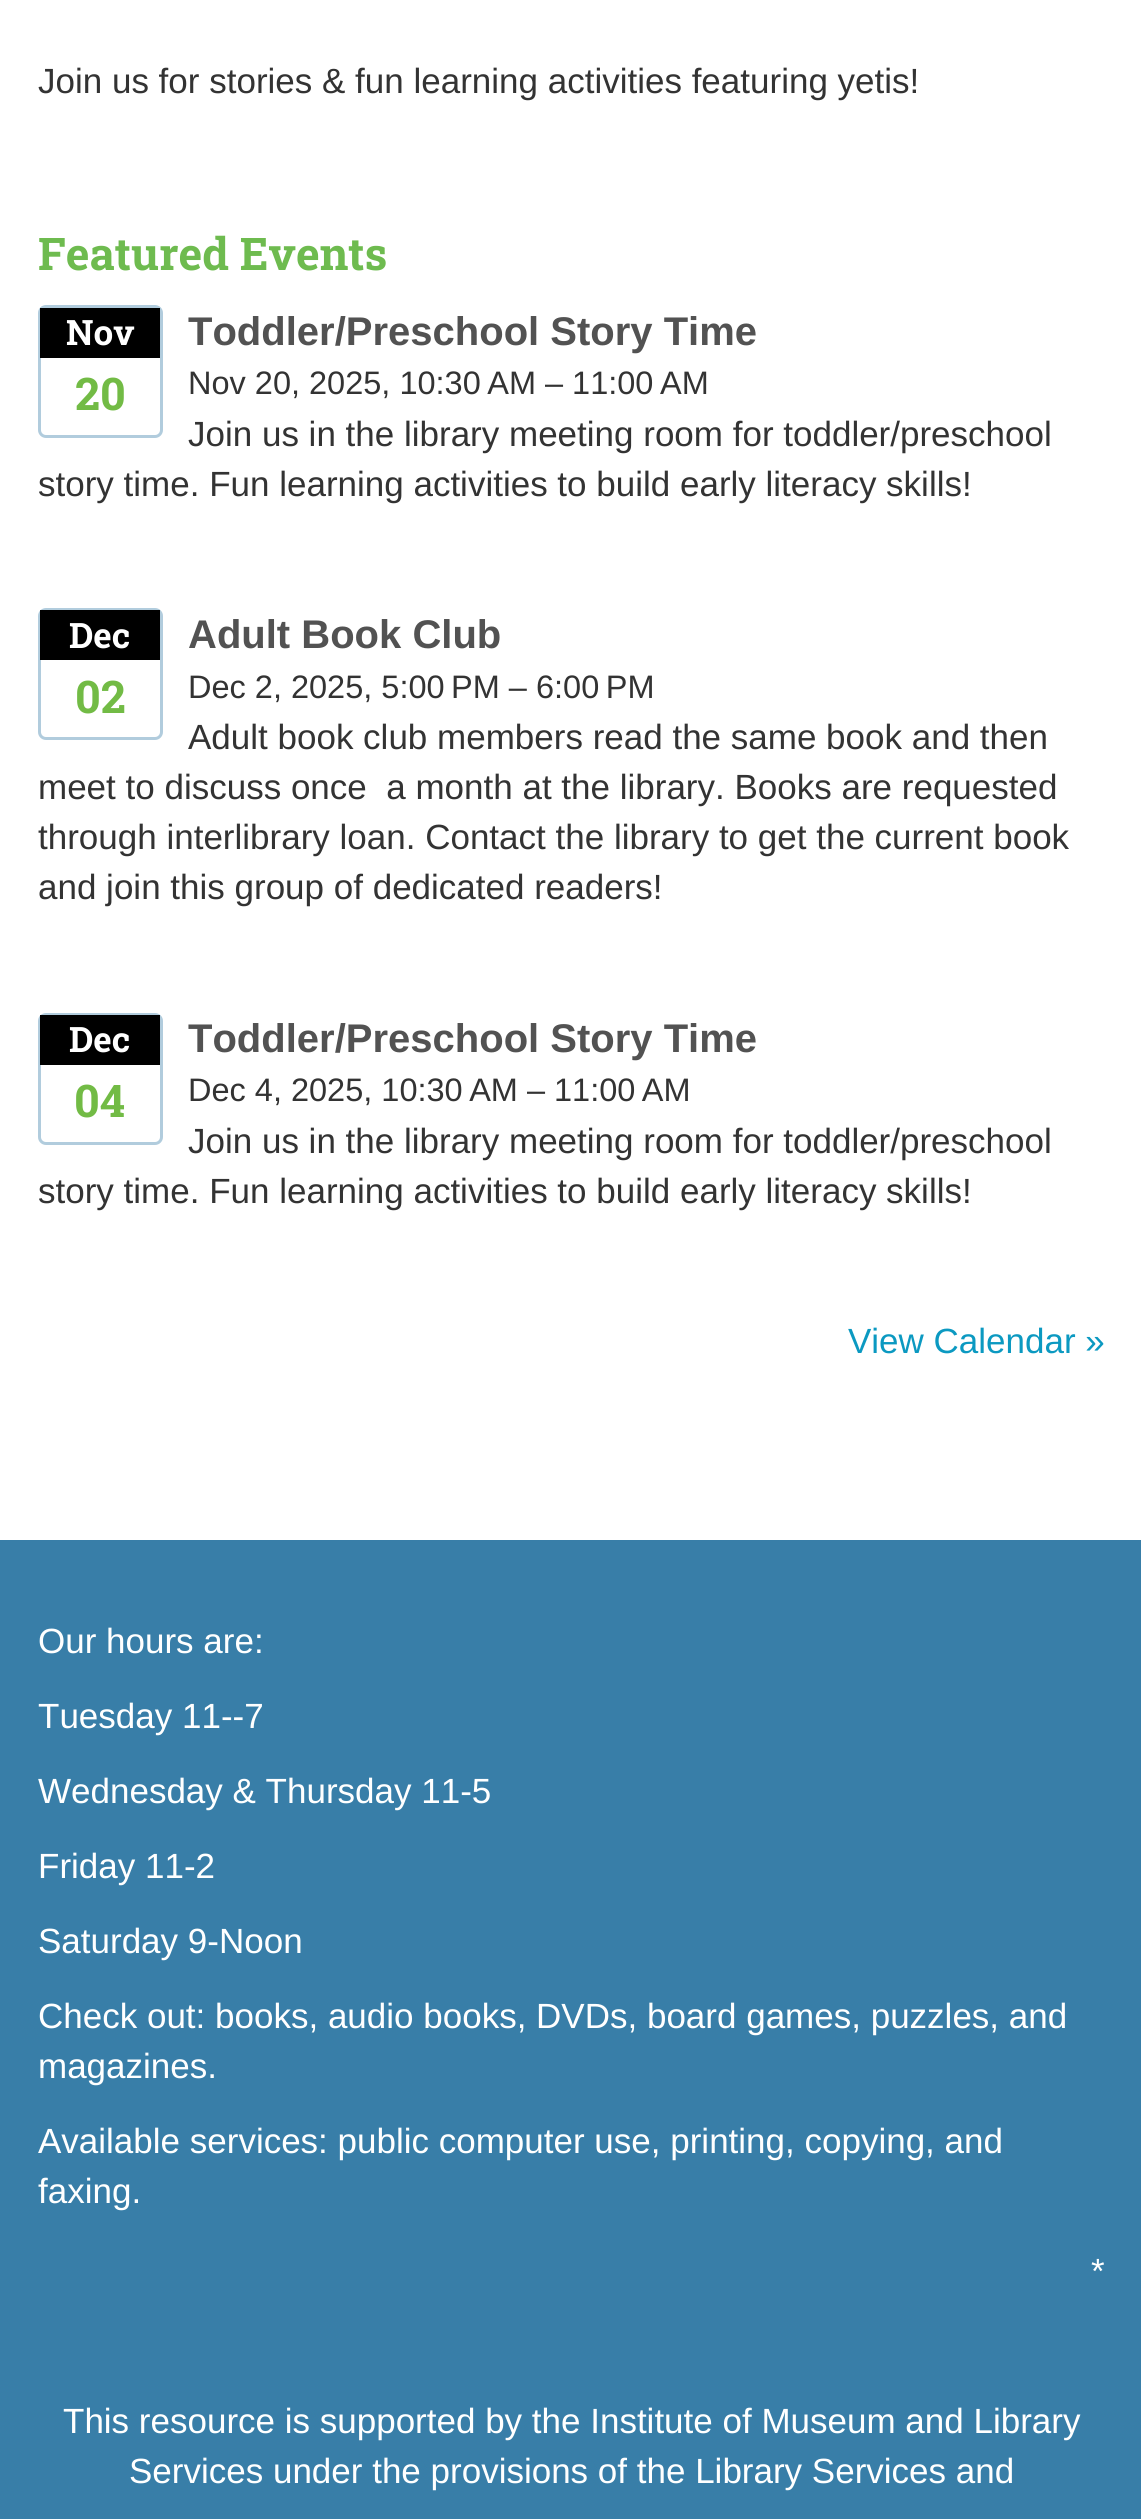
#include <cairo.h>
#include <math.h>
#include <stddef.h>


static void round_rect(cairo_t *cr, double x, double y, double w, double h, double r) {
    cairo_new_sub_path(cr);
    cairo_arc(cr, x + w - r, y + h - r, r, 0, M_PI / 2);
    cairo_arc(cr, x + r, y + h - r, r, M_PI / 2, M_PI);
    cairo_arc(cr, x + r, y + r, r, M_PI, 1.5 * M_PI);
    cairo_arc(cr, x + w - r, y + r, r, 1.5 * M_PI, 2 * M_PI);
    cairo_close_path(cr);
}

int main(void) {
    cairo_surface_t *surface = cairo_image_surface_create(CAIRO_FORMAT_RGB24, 1141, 2519);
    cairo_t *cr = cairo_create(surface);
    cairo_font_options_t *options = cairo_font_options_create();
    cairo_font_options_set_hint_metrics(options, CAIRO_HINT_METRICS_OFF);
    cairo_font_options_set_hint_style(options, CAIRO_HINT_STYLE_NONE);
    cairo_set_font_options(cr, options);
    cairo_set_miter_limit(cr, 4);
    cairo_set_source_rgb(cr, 1, 1, 1);
    cairo_paint(cr);
    cairo_select_font_face(cr, "Liberation Sans", CAIRO_FONT_SLANT_NORMAL, CAIRO_FONT_WEIGHT_NORMAL);
    cairo_set_font_size(cr, 35);
    cairo_set_source_rgb(cr, 0.2, 0.2, 0.2);
    cairo_move_to(cr, 38, 93);
    cairo_show_text(cr, "Join us for stories & fun learning activities featuring yetis!");
    cairo_select_font_face(cr, "Roboto Slab", CAIRO_FONT_SLANT_NORMAL, CAIRO_FONT_WEIGHT_BOLD);
    cairo_set_font_size(cr, 45);
    cairo_set_source_rgb(cr, 0.431, 0.733, 0.31);
    cairo_move_to(cr, 38, 270);
    cairo_show_text(cr, "Featured Events");
    round_rect(cr, 39.5, 306.5, 122, 130, 6.5);
    cairo_set_source_rgb(cr, 0.694, 0.8, 0.867);
    cairo_set_line_width(cr, 3);
    cairo_stroke(cr);
    cairo_set_source_rgb(cr, 0, 0, 0);
    cairo_rectangle(cr, 40, 308, 120, 50);
    cairo_fill(cr);
    cairo_set_font_size(cr, 35);
    cairo_set_source_rgb(cr, 1, 1, 1);
    cairo_move_to(cr, 66, 345);
    cairo_show_text(cr, "Nov");
    cairo_set_font_size(cr, 45);
    cairo_set_source_rgb(cr, 0.447, 0.733, 0.271);
    cairo_move_to(cr, 75, 410);
    cairo_show_text(cr, "20");
    cairo_select_font_face(cr, "Liberation Sans", CAIRO_FONT_SLANT_NORMAL, CAIRO_FONT_WEIGHT_BOLD);
    cairo_set_font_size(cr, 40);
    cairo_set_source_rgb(cr, 0.322, 0.322, 0.322);
    cairo_move_to(cr, 188, 345);
    cairo_show_text(cr, "Toddler/Preschool Story Time");
    cairo_select_font_face(cr, "Liberation Sans", CAIRO_FONT_SLANT_NORMAL, CAIRO_FONT_WEIGHT_NORMAL);
    cairo_set_font_size(cr, 32.5);
    cairo_set_source_rgb(cr, 0.2, 0.2, 0.2);
    cairo_move_to(cr, 188, 394);
    cairo_show_text(cr, "Nov 20, 2025, 10:30 AM – 11:00 AM");
    cairo_set_font_size(cr, 35);
    cairo_move_to(cr, 188, 446);
    cairo_show_text(cr, "Join us in the library meeting room for toddler/preschool");
    cairo_move_to(cr, 38, 496);
    cairo_show_text(cr, "story time. Fun learning activities to build early literacy skills!");
    round_rect(cr, 39.5, 609.5, 122, 129, 6.5);
    cairo_set_source_rgb(cr, 0.694, 0.8, 0.867);
    cairo_stroke(cr);
    cairo_set_source_rgb(cr, 0, 0, 0);
    cairo_rectangle(cr, 40, 610, 120, 50);
    cairo_fill(cr);
    cairo_select_font_face(cr, "Roboto Slab", CAIRO_FONT_SLANT_NORMAL, CAIRO_FONT_WEIGHT_BOLD);
    cairo_set_source_rgb(cr, 1, 1, 1);
    cairo_move_to(cr, 69, 648);
    cairo_show_text(cr, "Dec");
    cairo_set_font_size(cr, 45);
    cairo_set_source_rgb(cr, 0.447, 0.733, 0.271);
    cairo_move_to(cr, 75, 713);
    cairo_show_text(cr, "02");
    cairo_select_font_face(cr, "Liberation Sans", CAIRO_FONT_SLANT_NORMAL, CAIRO_FONT_WEIGHT_BOLD);
    cairo_set_font_size(cr, 40);
    cairo_set_source_rgb(cr, 0.322, 0.322, 0.322);
    cairo_move_to(cr, 188, 648);
    cairo_show_text(cr, "Adult Book Club");
    cairo_select_font_face(cr, "Liberation Sans", CAIRO_FONT_SLANT_NORMAL, CAIRO_FONT_WEIGHT_NORMAL);
    cairo_set_font_size(cr, 32.5);
    cairo_set_source_rgb(cr, 0.2, 0.2, 0.2);
    cairo_move_to(cr, 188, 698);
    cairo_show_text(cr, "Dec 2, 2025, 5:00 PM – 6:00 PM");
    cairo_set_font_size(cr, 35);
    cairo_move_to(cr, 188, 749);
    cairo_show_text(cr, "Adult book club members read the same book and then");
    cairo_move_to(cr, 38, 799);
    cairo_show_text(cr, "meet to discuss once  a month at the library. Books are requested");
    cairo_move_to(cr, 38, 849);
    cairo_show_text(cr, "through interlibrary loan. Contact the library to get the current book");
    cairo_move_to(cr, 38, 899);
    cairo_show_text(cr, "and join this group of dedicated readers!");
    round_rect(cr, 39.5, 1014.5, 122, 129, 6.5);
    cairo_set_source_rgb(cr, 0.694, 0.8, 0.867);
    cairo_stroke(cr);
    cairo_set_source_rgb(cr, 0, 0, 0);
    cairo_rectangle(cr, 40, 1015, 120, 50);
    cairo_fill(cr);
    cairo_select_font_face(cr, "Roboto Slab", CAIRO_FONT_SLANT_NORMAL, CAIRO_FONT_WEIGHT_BOLD);
    cairo_set_source_rgb(cr, 1, 1, 1);
    cairo_move_to(cr, 69, 1052);
    cairo_show_text(cr, "Dec");
    cairo_set_font_size(cr, 45);
    cairo_set_source_rgb(cr, 0.447, 0.733, 0.271);
    cairo_move_to(cr, 74, 1117);
    cairo_show_text(cr, "04");
    cairo_select_font_face(cr, "Liberation Sans", CAIRO_FONT_SLANT_NORMAL, CAIRO_FONT_WEIGHT_BOLD);
    cairo_set_font_size(cr, 40);
    cairo_set_source_rgb(cr, 0.322, 0.322, 0.322);
    cairo_move_to(cr, 188, 1052);
    cairo_show_text(cr, "Toddler/Preschool Story Time");
    cairo_select_font_face(cr, "Liberation Sans", CAIRO_FONT_SLANT_NORMAL, CAIRO_FONT_WEIGHT_NORMAL);
    cairo_set_font_size(cr, 32.5);
    cairo_set_source_rgb(cr, 0.2, 0.2, 0.2);
    cairo_move_to(cr, 188, 1101);
    cairo_show_text(cr, "Dec 4, 2025, 10:30 AM – 11:00 AM");
    cairo_set_font_size(cr, 35);
    cairo_move_to(cr, 188, 1153);
    cairo_show_text(cr, "Join us in the library meeting room for toddler/preschool");
    cairo_move_to(cr, 38, 1203);
    cairo_show_text(cr, "story time. Fun learning activities to build early literacy skills!");
    cairo_set_source_rgb(cr, 0.043, 0.6, 0.757);
    cairo_move_to(cr, 848, 1353);
    cairo_show_text(cr, "View Calendar »");
    cairo_set_source_rgb(cr, 0.22, 0.494, 0.659);
    cairo_rectangle(cr, 0, 1540, 1141, 979);
    cairo_fill(cr);
    cairo_set_source_rgb(cr, 1, 1, 1);
    cairo_move_to(cr, 38, 1653);
    cairo_show_text(cr, "Our hours are:");
    cairo_move_to(cr, 38, 1728);
    cairo_show_text(cr, "Tuesday 11--7");
    cairo_move_to(cr, 38, 1803);
    cairo_show_text(cr, "Wednesday & Thursday 11-5");
    cairo_move_to(cr, 38, 1878);
    cairo_show_text(cr, "Friday 11-2");
    cairo_move_to(cr, 38, 1953);
    cairo_show_text(cr, "Saturday 9-Noon");
    cairo_move_to(cr, 38, 2028);
    cairo_show_text(cr, "Check out: books, audio books, DVDs, board games, puzzles, and");
    cairo_move_to(cr, 38, 2078);
    cairo_show_text(cr, "magazines.");
    cairo_move_to(cr, 38, 2153);
    cairo_show_text(cr, "Available services: public computer use, printing, copying, and");
    cairo_move_to(cr, 38, 2203);
    cairo_show_text(cr, "faxing.");
    cairo_move_to(cr, 1091, 2283);
    cairo_show_text(cr, "*");
    cairo_move_to(cr, 63, 2433);
    cairo_show_text(cr, "This resource is supported by the Institute of Museum and Library");
    cairo_move_to(cr, 129, 2483);
    cairo_show_text(cr, "Services under the provisions of the Library Services and");
    cairo_surface_write_to_png(surface, "page.png");
    cairo_font_options_destroy(options);
    cairo_destroy(cr);
    cairo_surface_destroy(surface);
    return 0;
}
